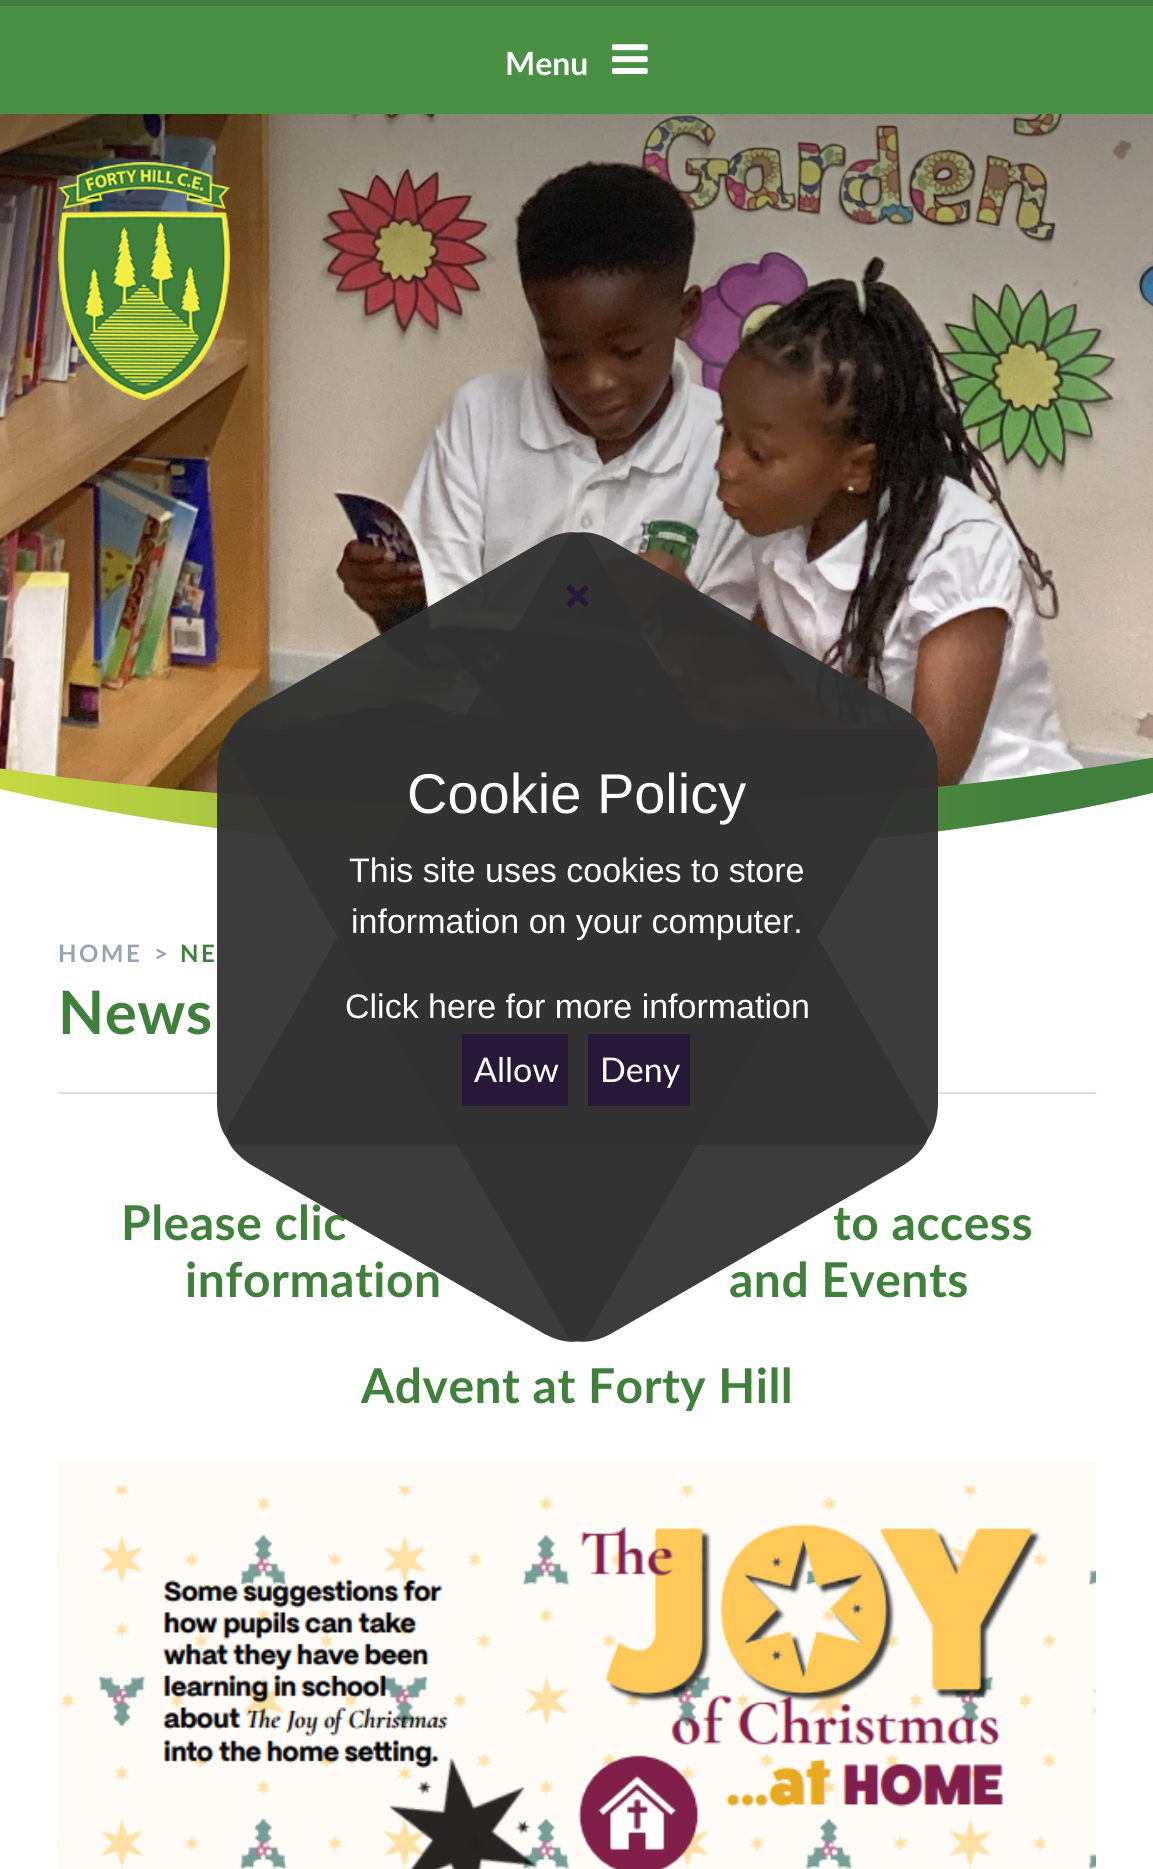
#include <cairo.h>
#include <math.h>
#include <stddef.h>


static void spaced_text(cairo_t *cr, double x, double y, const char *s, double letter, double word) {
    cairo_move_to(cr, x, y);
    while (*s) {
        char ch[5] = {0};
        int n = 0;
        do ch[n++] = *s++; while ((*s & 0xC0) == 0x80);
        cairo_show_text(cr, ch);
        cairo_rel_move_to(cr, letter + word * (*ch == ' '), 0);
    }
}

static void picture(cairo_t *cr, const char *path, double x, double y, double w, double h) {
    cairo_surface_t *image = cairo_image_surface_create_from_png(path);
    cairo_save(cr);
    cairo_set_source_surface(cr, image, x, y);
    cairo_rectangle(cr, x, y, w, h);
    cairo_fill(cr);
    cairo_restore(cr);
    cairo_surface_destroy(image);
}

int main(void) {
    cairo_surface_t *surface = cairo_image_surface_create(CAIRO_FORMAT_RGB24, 1153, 1869);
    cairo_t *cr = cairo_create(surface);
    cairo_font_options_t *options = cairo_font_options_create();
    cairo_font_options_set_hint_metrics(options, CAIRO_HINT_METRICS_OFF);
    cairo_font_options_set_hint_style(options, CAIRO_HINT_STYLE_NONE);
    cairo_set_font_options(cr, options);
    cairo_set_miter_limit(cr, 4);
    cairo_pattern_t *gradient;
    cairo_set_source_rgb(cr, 1, 1, 1);
    cairo_paint(cr);
    cairo_set_source_rgb(cr, 0.251, 0.498, 0.235);
    cairo_rectangle(cr, 0, 0, 1153, 6);
    cairo_fill(cr);
    cairo_set_source_rgb(cr, 0.286, 0.565, 0.267);
    cairo_rectangle(cr, 0, 6, 1153, 108);
    cairo_fill(cr);
    cairo_select_font_face(cr, "Lato", CAIRO_FONT_SLANT_NORMAL, CAIRO_FONT_WEIGHT_BOLD);
    cairo_set_font_size(cr, 32);
    cairo_set_source_rgb(cr, 1, 1, 1);
    cairo_move_to(cr, 505, 75);
    cairo_show_text(cr, "Menu");
    picture(cr, "img1.png", 612, 44, 36, 30);
    cairo_save(cr);
    cairo_rectangle(cr, 0, 362, 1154, 490);
    cairo_clip(cr);
    gradient = cairo_pattern_create_linear(-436, 607, 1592, 607);
    cairo_pattern_add_color_stop_rgba(gradient, 0, 1, 1, 0.267, 1);
    cairo_pattern_add_color_stop_rgba(gradient, 0.72, 0.251, 0.498, 0.235, 1);
    cairo_set_source(cr, gradient);
    cairo_pattern_destroy(gradient);
    cairo_new_path(cr);
    cairo_move_to(cr, 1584, 450);
    cairo_curve_to(cr, 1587, 419, 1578, 389, 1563, 362);
    cairo_curve_to(cr, 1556, 573, 1074, 746, 478, 751);
    cairo_curve_to(cr, 95, 754, -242, 687, -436, 583);
    cairo_curve_to(cr, -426, 592, -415, 601, -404, 609);
    cairo_line_to(cr, -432, 595);
    cairo_curve_to(cr, -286, 738, 94, 845, 543, 852);
    cairo_curve_to(cr, 1119, 862, 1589, 704, 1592, 500);
    cairo_curve_to(cr, 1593, 483, 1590, 466, 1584, 450);
    cairo_close_path(cr);
    cairo_fill(cr);
    cairo_restore(cr);
    picture(cr, "img3.png", 0, 114, 1153, 692);
    picture(cr, "img2.png", 58, 162, 172, 238);
    cairo_set_font_size(cr, 24);
    cairo_set_source_rgb(cr, 0.596, 0.639, 0.706);
    spaced_text(cr, 58, 962, "HOME", 2.5, 0);
    cairo_move_to(cr, 154, 962);
    cairo_show_text(cr, ">");
    cairo_set_source_rgb(cr, 0.251, 0.498, 0.235);
    spaced_text(cr, 180, 962, "NE", 2.5, 0);
    cairo_set_source_rgb(cr, 0.851, 0.898, 0.847);
    cairo_rectangle(cr, 58, 1092, 1038, 2);
    cairo_fill(cr);
    cairo_set_font_size(cr, 60);
    cairo_set_source_rgb(cr, 0.251, 0.498, 0.235);
    spaced_text(cr, 58, 1034, "News", 0.5, 0);
    cairo_set_font_size(cr, 48);
    spaced_text(cr, 121, 1240, "Please clic", 0.5, 0);
    spaced_text(cr, 833, 1240, "to access", 0.5, 0);
    spaced_text(cr, 185, 1297, "information", 0.5, 0);
    spaced_text(cr, 729, 1297, "and Events", 0.5, 0);
    spaced_text(cr, 361, 1403, "Advent at Forty Hill", 0.5, 0);
    picture(cr, "img4.png", 58, 1462, 1038, 407);
    cairo_set_source_rgba(cr, 0.2, 0.2, 0.2, 0.95);
    cairo_new_path(cr);
    cairo_move_to(cr, 938, 770);
    cairo_line_to(cr, 938, 1103);
    cairo_curve_to(cr, 938, 1126, 928, 1145, 917, 1145);
    cairo_line_to(cr, 238, 1145);
    cairo_curve_to(cr, 227, 1145, 217, 1126, 217, 1103);
    cairo_line_to(cr, 217, 770);
    cairo_curve_to(cr, 217, 747, 227, 729, 238, 729);
    cairo_line_to(cr, 917, 729);
    cairo_curve_to(cr, 928, 729, 938, 747, 938, 770);
    cairo_close_path(cr);
    cairo_fill(cr);
    cairo_new_path(cr);
    cairo_move_to(cr, 902, 1166);
    cairo_line_to(cr, 614, 1332);
    cairo_curve_to(cr, 594, 1344, 573, 1345, 567, 1335);
    cairo_line_to(cr, 228, 747);
    cairo_curve_to(cr, 222, 737, 233, 720, 253, 708);
    cairo_line_to(cr, 541, 542);
    cairo_curve_to(cr, 561, 530, 582, 529, 588, 539);
    cairo_line_to(cr, 927, 1127);
    cairo_curve_to(cr, 933, 1137, 922, 1154, 902, 1166);
    cairo_close_path(cr);
    cairo_fill(cr);
    cairo_new_path(cr);
    cairo_move_to(cr, 614, 542);
    cairo_line_to(cr, 902, 708);
    cairo_curve_to(cr, 922, 720, 933, 737, 927, 747);
    cairo_line_to(cr, 588, 1335);
    cairo_curve_to(cr, 582, 1345, 561, 1344, 541, 1332);
    cairo_line_to(cr, 253, 1166);
    cairo_curve_to(cr, 233, 1154, 222, 1137, 228, 1127);
    cairo_line_to(cr, 567, 539);
    cairo_curve_to(cr, 573, 529, 594, 530, 614, 542);
    cairo_close_path(cr);
    cairo_fill(cr);
    picture(cr, "img5.png", 566, 585, 23, 22);
    cairo_select_font_face(cr, "Liberation Sans", CAIRO_FONT_SLANT_NORMAL, CAIRO_FONT_WEIGHT_NORMAL);
    cairo_set_font_size(cr, 56);
    cairo_set_source_rgb(cr, 1, 1, 1);
    cairo_move_to(cr, 407, 813);
    cairo_show_text(cr, "Cookie Policy");
    cairo_set_font_size(cr, 34);
    cairo_move_to(cr, 349, 882);
    cairo_show_text(cr, "This site uses cookies to store");
    cairo_move_to(cr, 351, 933);
    cairo_show_text(cr, "information on your computer.");
    cairo_move_to(cr, 345, 1018);
    cairo_show_text(cr, "Click here for more information");
    cairo_set_source_rgb(cr, 0.157, 0.094, 0.22);
    cairo_rectangle(cr, 462, 1034, 106, 72);
    cairo_fill(cr);
    cairo_select_font_face(cr, "Lato", CAIRO_FONT_SLANT_NORMAL, CAIRO_FONT_WEIGHT_NORMAL);
    cairo_set_source_rgb(cr, 1, 1, 1);
    cairo_move_to(cr, 474, 1082);
    cairo_show_text(cr, "Allow");
    cairo_set_source_rgb(cr, 0.157, 0.094, 0.22);
    cairo_rectangle(cr, 588, 1034, 102, 72);
    cairo_fill(cr);
    cairo_set_source_rgb(cr, 1, 1, 1);
    cairo_move_to(cr, 600, 1082);
    cairo_show_text(cr, "Deny");
    cairo_surface_write_to_png(surface, "page.png");
    cairo_font_options_destroy(options);
    cairo_destroy(cr);
    cairo_surface_destroy(surface);
    return 0;
}
